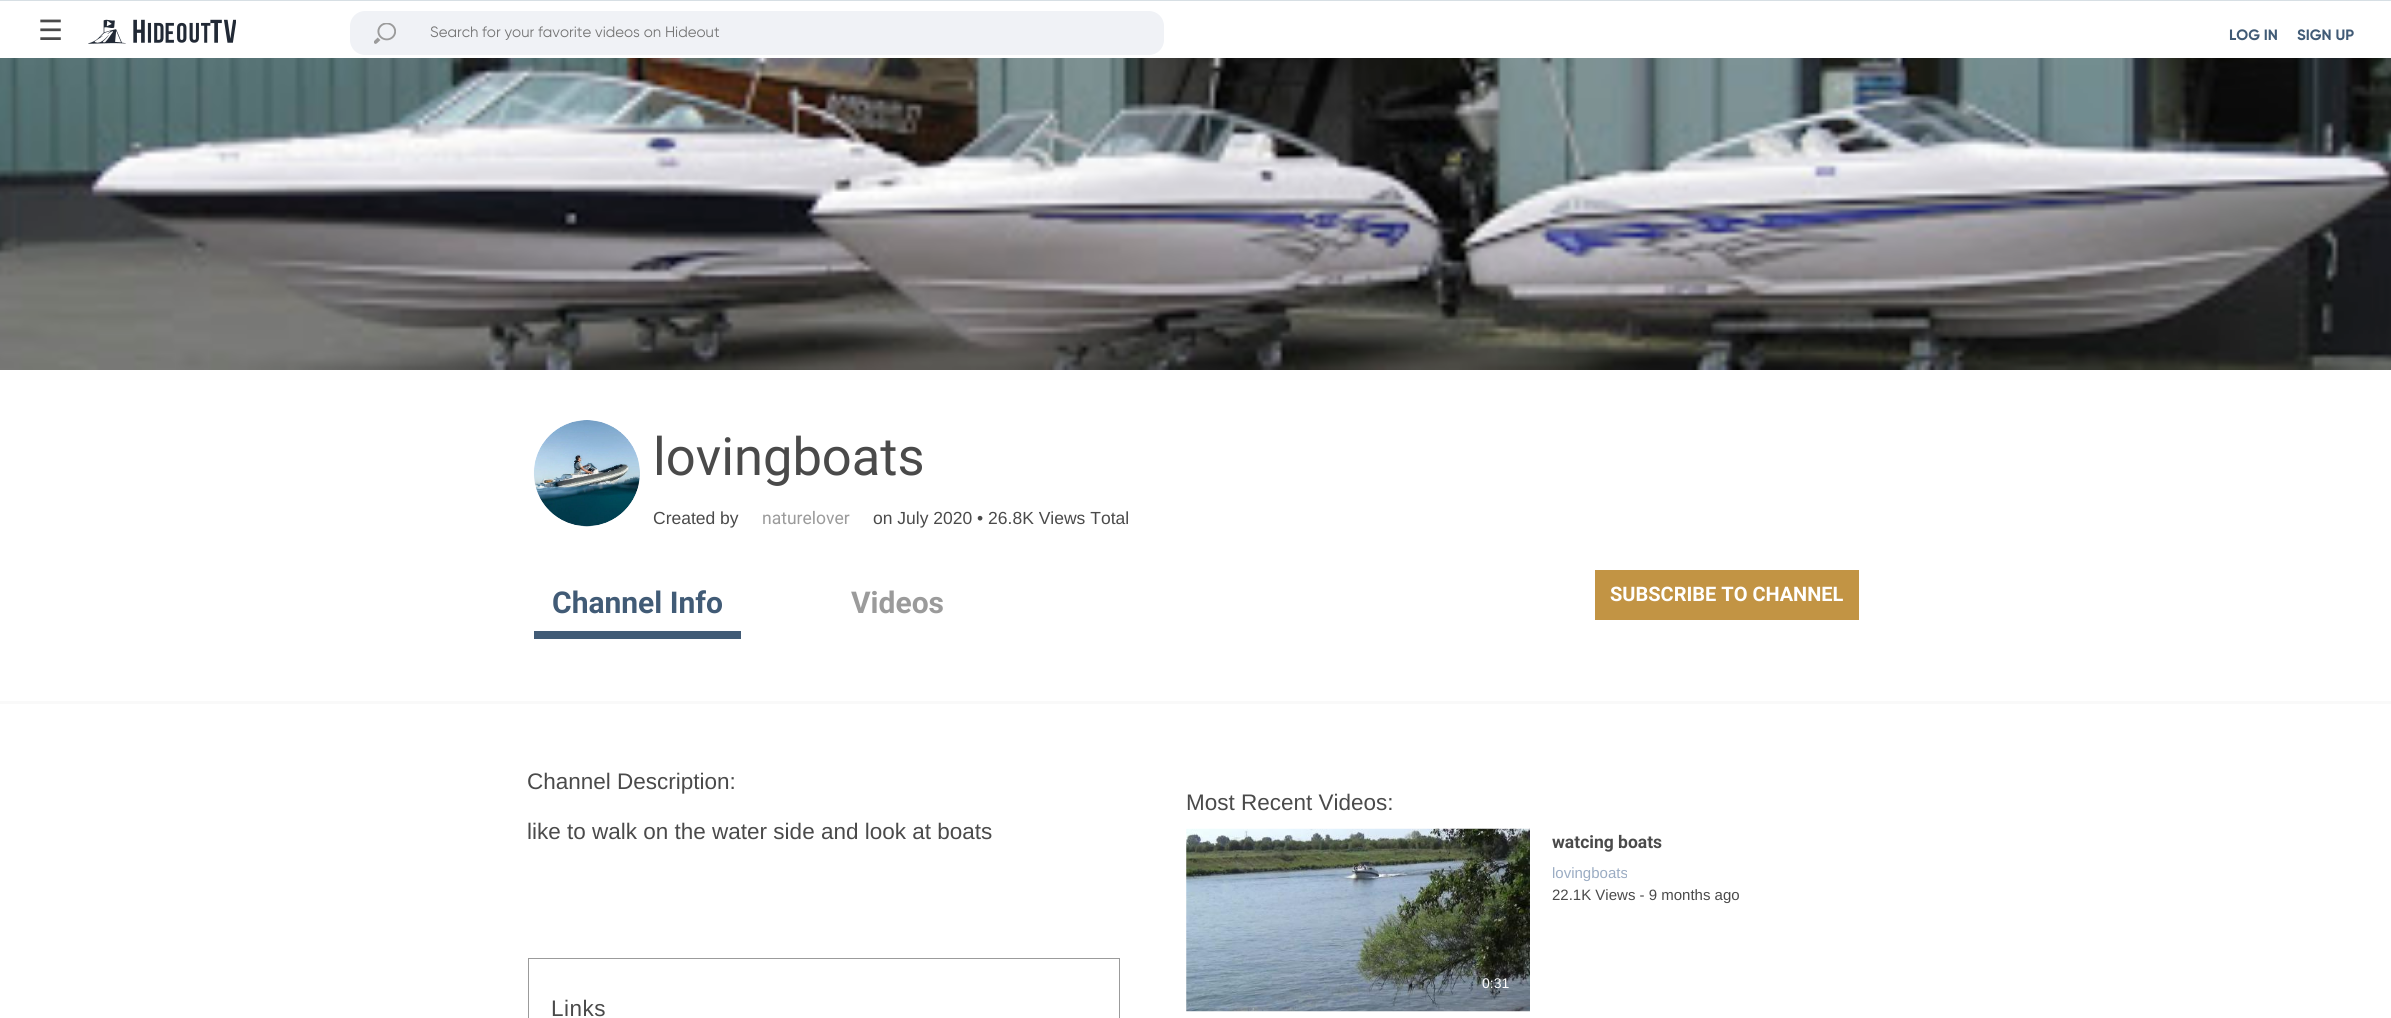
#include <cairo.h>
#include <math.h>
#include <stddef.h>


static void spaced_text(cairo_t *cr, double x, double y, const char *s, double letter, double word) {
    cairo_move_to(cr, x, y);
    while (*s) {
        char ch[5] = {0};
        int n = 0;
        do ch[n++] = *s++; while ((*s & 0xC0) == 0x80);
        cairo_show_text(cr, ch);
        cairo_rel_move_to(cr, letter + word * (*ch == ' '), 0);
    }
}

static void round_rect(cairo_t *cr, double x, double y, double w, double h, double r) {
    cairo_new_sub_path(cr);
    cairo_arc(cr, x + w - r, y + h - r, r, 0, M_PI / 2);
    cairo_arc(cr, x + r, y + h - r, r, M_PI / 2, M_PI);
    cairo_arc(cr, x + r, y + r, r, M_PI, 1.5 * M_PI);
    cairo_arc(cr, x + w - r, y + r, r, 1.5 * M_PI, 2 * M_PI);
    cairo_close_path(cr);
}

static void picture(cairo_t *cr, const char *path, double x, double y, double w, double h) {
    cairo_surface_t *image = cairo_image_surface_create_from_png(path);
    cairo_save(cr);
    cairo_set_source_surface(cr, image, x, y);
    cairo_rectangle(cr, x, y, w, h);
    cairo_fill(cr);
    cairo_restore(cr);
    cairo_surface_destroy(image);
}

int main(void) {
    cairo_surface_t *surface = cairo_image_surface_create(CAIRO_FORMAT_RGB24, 2391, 1018);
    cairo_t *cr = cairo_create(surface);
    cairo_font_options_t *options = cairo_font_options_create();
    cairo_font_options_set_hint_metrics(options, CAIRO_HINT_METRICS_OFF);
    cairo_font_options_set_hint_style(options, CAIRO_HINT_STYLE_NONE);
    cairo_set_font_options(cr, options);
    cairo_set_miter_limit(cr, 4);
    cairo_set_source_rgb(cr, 1, 1, 1);
    cairo_paint(cr);
    cairo_set_source_rgb(cr, 0.843, 0.875, 0.894);
    cairo_rectangle(cr, 0, 0, 2391, 1);
    cairo_fill(cr);
    cairo_select_font_face(cr, "DejaVu Sans", CAIRO_FONT_SLANT_NORMAL, CAIRO_FONT_WEIGHT_NORMAL);
    cairo_set_font_size(cr, 28);
    cairo_set_source_rgb(cr, 0.29, 0.29, 0.29);
    cairo_move_to(cr, 38, 40);
    cairo_show_text(cr, "☰");
    picture(cr, "img1.png", 88, 19, 148, 25);
    cairo_set_source_rgb(cr, 0.941, 0.949, 0.961);
    round_rect(cr, 350, 11, 814, 44, 15);
    cairo_fill(cr);
    picture(cr, "img2.png", 374, 23, 22, 21);
    cairo_select_font_face(cr, "Gilroy", CAIRO_FONT_SLANT_NORMAL, CAIRO_FONT_WEIGHT_NORMAL);
    cairo_set_font_size(cr, 15);
    cairo_set_source_rgb(cr, 0.459, 0.459, 0.459);
    cairo_move_to(cr, 430, 37);
    cairo_show_text(cr, "Search for your favorite videos on Hideout");
    cairo_select_font_face(cr, "Gilroy", CAIRO_FONT_SLANT_NORMAL, CAIRO_FONT_WEIGHT_BOLD);
    cairo_set_source_rgb(cr, 0.255, 0.357, 0.463);
    cairo_move_to(cr, 2229, 40);
    cairo_show_text(cr, "LOG IN");
    cairo_move_to(cr, 2297, 40);
    cairo_show_text(cr, "SIGN UP");
    picture(cr, "img3.png", 0, 58, 2391, 312);
    cairo_set_source_rgb(cr, 0.973, 0.973, 0.973);
    cairo_rectangle(cr, 0, 701, 2391, 3);
    cairo_fill(cr);
    picture(cr, "img4.png", 533, 420, 107, 107);
    cairo_select_font_face(cr, "Roboto", CAIRO_FONT_SLANT_NORMAL, CAIRO_FONT_WEIGHT_NORMAL);
    cairo_set_font_size(cr, 52.5);
    cairo_set_source_rgb(cr, 0.29, 0.29, 0.29);
    cairo_move_to(cr, 653, 475);
    cairo_show_text(cr, "lovingboats");
    cairo_select_font_face(cr, "Liberation Sans", CAIRO_FONT_SLANT_NORMAL, CAIRO_FONT_WEIGHT_NORMAL);
    cairo_set_font_size(cr, 17.5);
    cairo_move_to(cr, 653, 524);
    cairo_show_text(cr, "Created by");
    cairo_select_font_face(cr, "Roboto", CAIRO_FONT_SLANT_NORMAL, CAIRO_FONT_WEIGHT_NORMAL);
    cairo_set_source_rgb(cr, 0.608, 0.608, 0.608);
    cairo_move_to(cr, 762, 524);
    cairo_show_text(cr, "naturelover");
    cairo_select_font_face(cr, "Liberation Sans", CAIRO_FONT_SLANT_NORMAL, CAIRO_FONT_WEIGHT_NORMAL);
    cairo_set_source_rgb(cr, 0.29, 0.29, 0.29);
    cairo_move_to(cr, 873, 524);
    cairo_show_text(cr, "on July 2020 • 26.8K Views Total");
    cairo_set_source_rgb(cr, 0.255, 0.357, 0.463);
    cairo_rectangle(cr, 534, 631, 207, 8);
    cairo_fill(cr);
    cairo_select_font_face(cr, "Roboto", CAIRO_FONT_SLANT_NORMAL, CAIRO_FONT_WEIGHT_BOLD);
    cairo_set_font_size(cr, 30);
    cairo_move_to(cr, 552, 613);
    cairo_show_text(cr, "Channel Info");
    cairo_set_source_rgb(cr, 0.608, 0.608, 0.608);
    cairo_move_to(cr, 851, 613);
    cairo_show_text(cr, "Videos");
    cairo_set_source_rgb(cr, 0.761, 0.58, 0.267);
    cairo_rectangle(cr, 1595, 570, 264, 50);
    cairo_fill(cr);
    cairo_set_font_size(cr, 20);
    cairo_set_source_rgb(cr, 1, 1, 1);
    cairo_move_to(cr, 1610, 601);
    cairo_show_text(cr, "SUBSCRIBE TO CHANNEL");
    cairo_select_font_face(cr, "Liberation Sans", CAIRO_FONT_SLANT_NORMAL, CAIRO_FONT_WEIGHT_NORMAL);
    cairo_set_font_size(cr, 22.5);
    cairo_set_source_rgb(cr, 0.29, 0.29, 0.29);
    cairo_move_to(cr, 527, 789);
    cairo_show_text(cr, "Channel Description:");
    cairo_move_to(cr, 527, 839);
    cairo_show_text(cr, "like to walk on the water side and look at boats");
    cairo_rectangle(cr, 528.5, 958.5, 591, 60);
    cairo_set_source_rgb(cr, 0.608, 0.608, 0.608);
    cairo_set_line_width(cr, 1);
    cairo_stroke(cr);
    cairo_set_source_rgb(cr, 0.29, 0.29, 0.29);
    spaced_text(cr, 551, 1016, "Links", 0.5, 0);
    cairo_move_to(cr, 1186, 810);
    cairo_show_text(cr, "Most Recent Videos:");
    cairo_select_font_face(cr, "Roboto", CAIRO_FONT_SLANT_NORMAL, CAIRO_FONT_WEIGHT_BOLD);
    cairo_set_font_size(cr, 17.5);
    cairo_move_to(cr, 1552, 848);
    cairo_show_text(cr, "watcing boats");
    cairo_select_font_face(cr, "Liberation Sans", CAIRO_FONT_SLANT_NORMAL, CAIRO_FONT_WEIGHT_NORMAL);
    cairo_set_font_size(cr, 15);
    cairo_set_source_rgb(cr, 0.608, 0.675, 0.765);
    cairo_move_to(cr, 1552, 878);
    cairo_show_text(cr, "lovingboats");
    cairo_set_source_rgb(cr, 0.29, 0.29, 0.29);
    cairo_move_to(cr, 1552, 900);
    cairo_show_text(cr, "22.1K Views - 9 months ago");
    picture(cr, "img5.png", 1186, 828, 344, 184);
    cairo_set_font_size(cr, 14);
    cairo_set_source_rgb(cr, 1, 1, 1);
    cairo_move_to(cr, 1482, 988);
    cairo_show_text(cr, "0:31");
    cairo_surface_write_to_png(surface, "page.png");
    cairo_font_options_destroy(options);
    cairo_destroy(cr);
    cairo_surface_destroy(surface);
    return 0;
}
